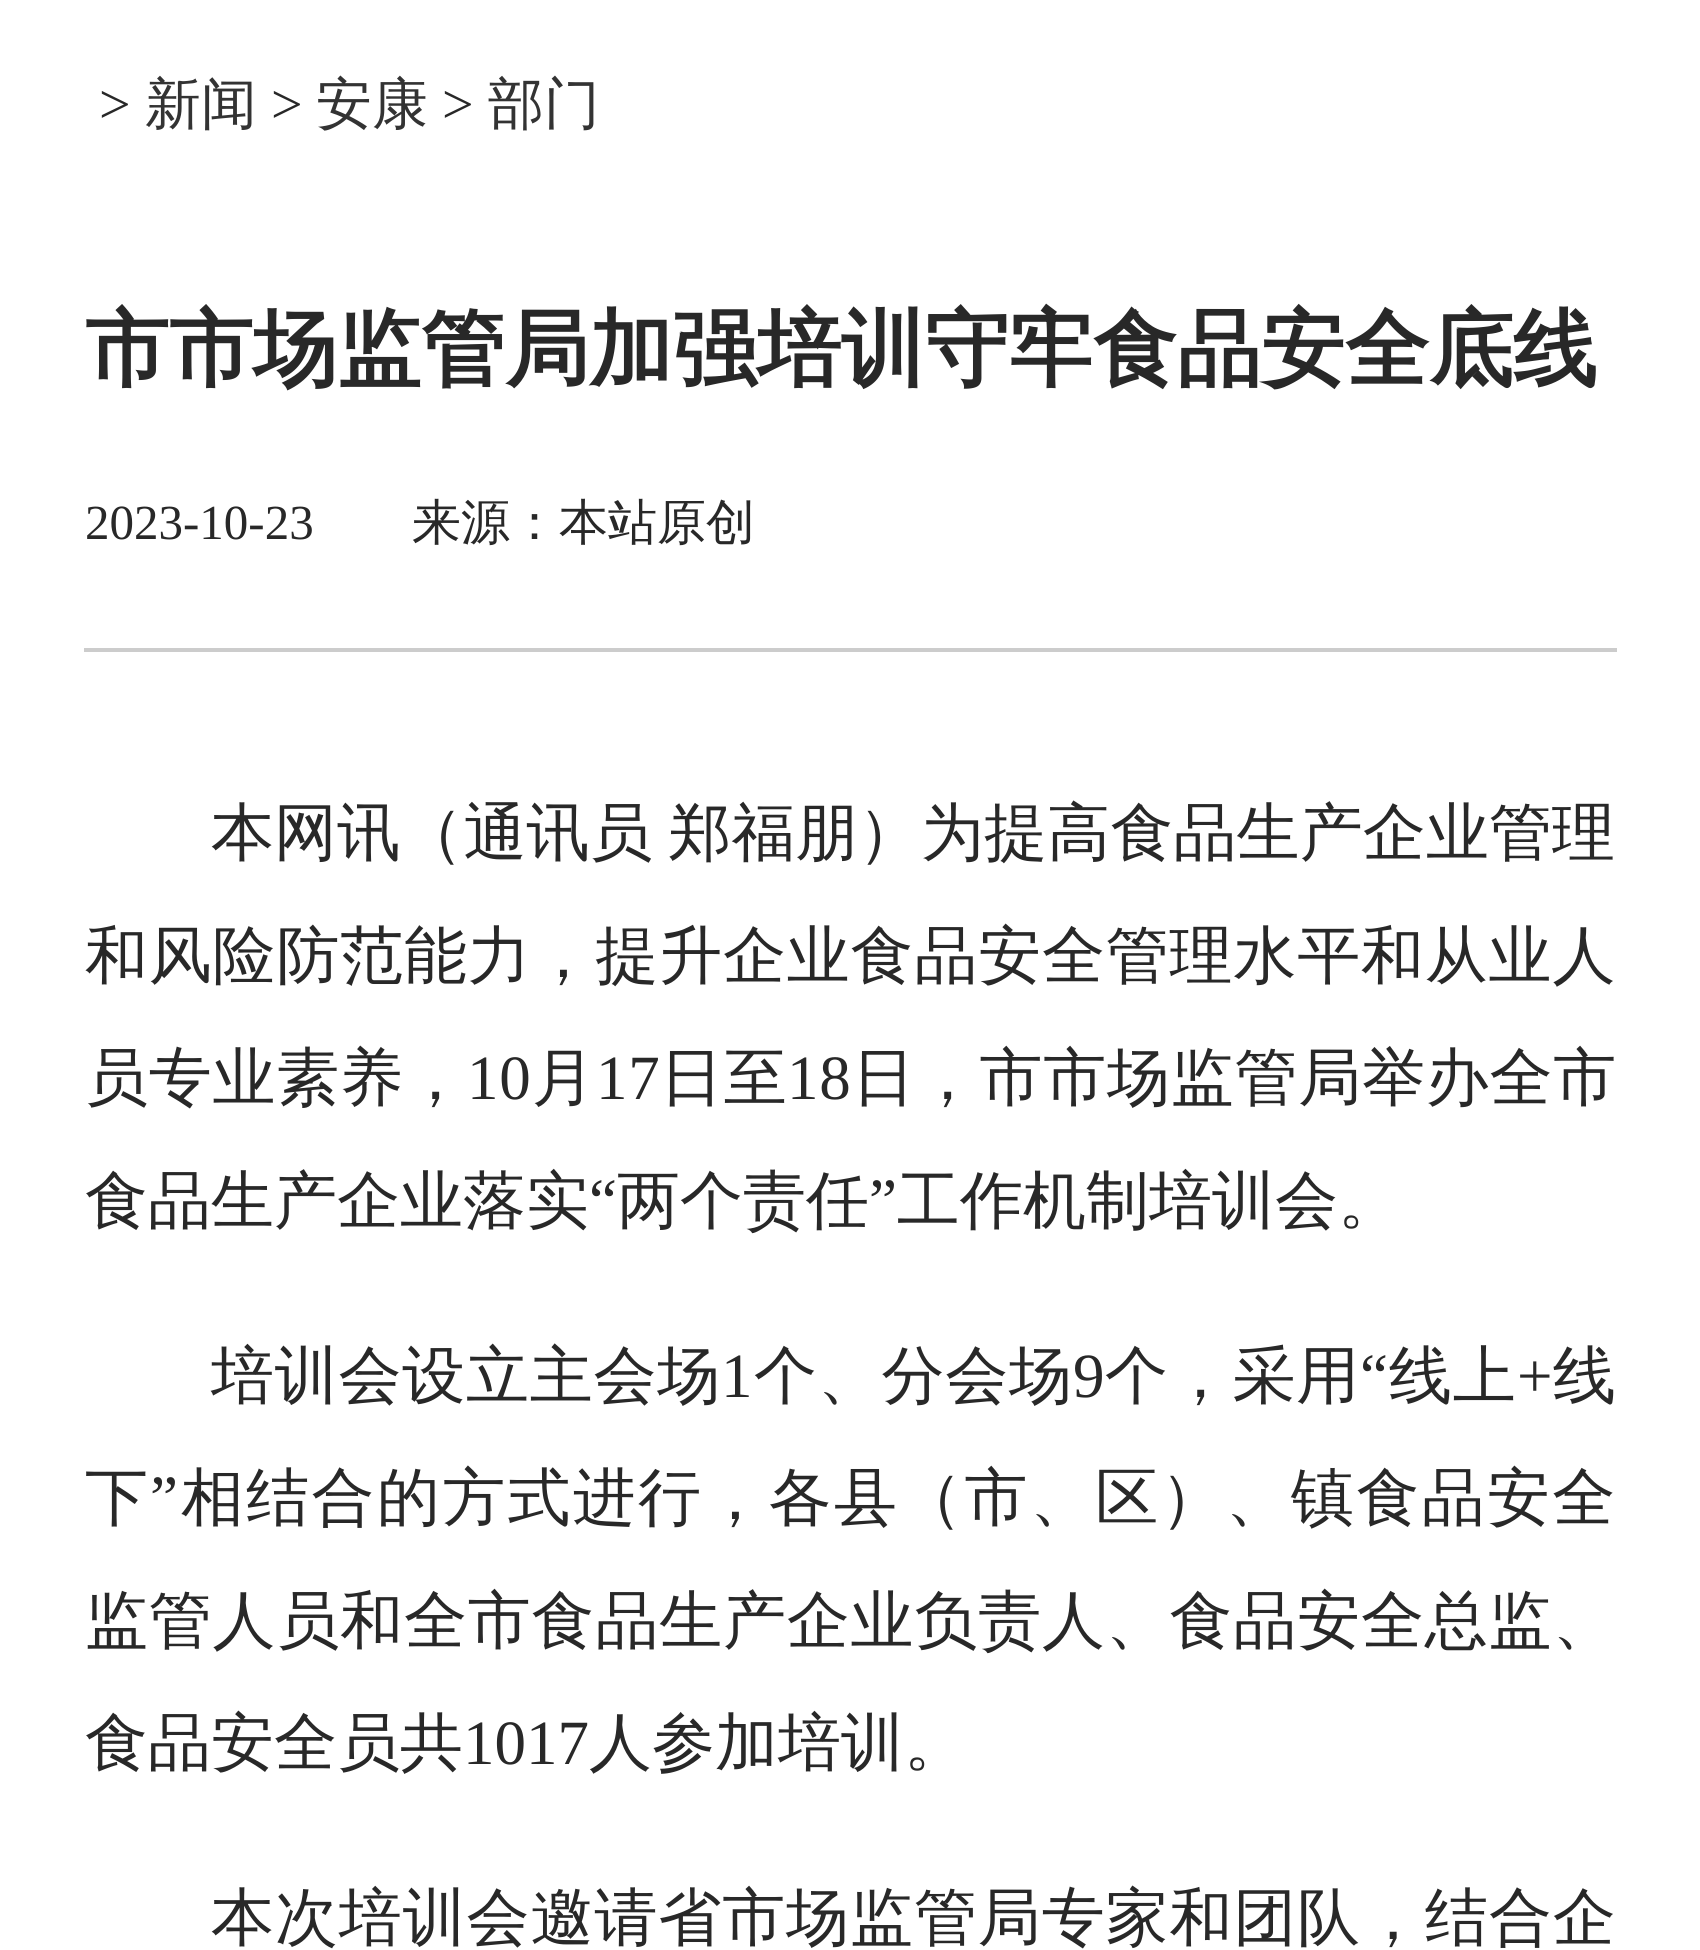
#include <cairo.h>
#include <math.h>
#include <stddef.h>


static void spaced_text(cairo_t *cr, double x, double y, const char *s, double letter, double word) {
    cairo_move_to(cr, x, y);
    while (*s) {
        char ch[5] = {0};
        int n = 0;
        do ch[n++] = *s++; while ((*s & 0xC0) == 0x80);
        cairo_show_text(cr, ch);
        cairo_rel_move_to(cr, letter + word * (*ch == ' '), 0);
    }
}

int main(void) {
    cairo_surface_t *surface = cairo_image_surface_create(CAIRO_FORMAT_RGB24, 1700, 1950);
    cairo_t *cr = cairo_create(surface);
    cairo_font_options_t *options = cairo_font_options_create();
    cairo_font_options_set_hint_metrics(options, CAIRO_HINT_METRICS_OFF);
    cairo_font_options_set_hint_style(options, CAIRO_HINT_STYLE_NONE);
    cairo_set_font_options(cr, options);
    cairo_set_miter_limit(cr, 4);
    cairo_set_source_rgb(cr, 1, 1, 1);
    cairo_paint(cr);
    cairo_select_font_face(cr, "Liberation Serif", CAIRO_FONT_SLANT_NORMAL, CAIRO_FONT_WEIGHT_NORMAL);
    cairo_set_font_size(cr, 56);
    cairo_set_source_rgb(cr, 0.157, 0.157, 0.157);
    cairo_move_to(cr, 99, 123);
    cairo_show_text(cr, ">");
    cairo_select_font_face(cr, "WenQuanYi Zen Hei Medium", CAIRO_FONT_SLANT_NORMAL, CAIRO_FONT_WEIGHT_NORMAL);
    cairo_set_source_rgb(cr, 0.2, 0.2, 0.2);
    cairo_move_to(cr, 145, 123);
    cairo_show_text(cr, "新闻");
    cairo_select_font_face(cr, "Liberation Serif", CAIRO_FONT_SLANT_NORMAL, CAIRO_FONT_WEIGHT_NORMAL);
    cairo_set_source_rgb(cr, 0.157, 0.157, 0.157);
    cairo_move_to(cr, 271, 123);
    cairo_show_text(cr, ">");
    cairo_select_font_face(cr, "WenQuanYi Zen Hei Medium", CAIRO_FONT_SLANT_NORMAL, CAIRO_FONT_WEIGHT_NORMAL);
    cairo_set_source_rgb(cr, 0.2, 0.2, 0.2);
    cairo_move_to(cr, 316, 123);
    cairo_show_text(cr, "安康");
    cairo_select_font_face(cr, "Liberation Serif", CAIRO_FONT_SLANT_NORMAL, CAIRO_FONT_WEIGHT_NORMAL);
    cairo_set_source_rgb(cr, 0.157, 0.157, 0.157);
    cairo_move_to(cr, 442, 123);
    cairo_show_text(cr, ">");
    cairo_select_font_face(cr, "WenQuanYi Zen Hei Medium", CAIRO_FONT_SLANT_NORMAL, CAIRO_FONT_WEIGHT_NORMAL);
    cairo_set_source_rgb(cr, 0.2, 0.2, 0.2);
    cairo_move_to(cr, 488, 123);
    cairo_show_text(cr, "部门");
    cairo_select_font_face(cr, "WenQuanYi Zen Hei", CAIRO_FONT_SLANT_NORMAL, CAIRO_FONT_WEIGHT_BOLD);
    cairo_set_font_size(cr, 84);
    cairo_set_source_rgb(cr, 0.157, 0.157, 0.157);
    cairo_move_to(cr, 85, 378);
    cairo_show_text(cr, "市市场监管局加强培训守牢食品安全底线");
    cairo_select_font_face(cr, "Liberation Serif", CAIRO_FONT_SLANT_NORMAL, CAIRO_FONT_WEIGHT_NORMAL);
    cairo_set_font_size(cr, 49);
    cairo_move_to(cr, 85, 539);
    cairo_show_text(cr, "2023-10-23");
    cairo_select_font_face(cr, "WenQuanYi Zen Hei Medium", CAIRO_FONT_SLANT_NORMAL, CAIRO_FONT_WEIGHT_NORMAL);
    cairo_move_to(cr, 412, 539);
    cairo_show_text(cr, "来源：本站原创");
    cairo_set_source_rgb(cr, 0.8, 0.8, 0.8);
    cairo_rectangle(cr, 84, 648, 1533, 4);
    cairo_fill(cr);
    cairo_set_font_size(cr, 63);
    cairo_set_source_rgb(cr, 0.157, 0.157, 0.157);
    spaced_text(cr, 211, 854, "本网讯（通讯员 郑福朋）为提高食品生产企业管理", 0.1, -3);
    spaced_text(cr, 85, 977, "和风险防范能力，提升企业食品安全管理水平和从业人", 0.8, 0);
    spaced_text(cr, 85, 1099, "员专业素养，", 0.75, 0);
    cairo_select_font_face(cr, "Liberation Serif", CAIRO_FONT_SLANT_NORMAL, CAIRO_FONT_WEIGHT_NORMAL);
    spaced_text(cr, 467, 1099, "10", 0.75, 0);
    cairo_select_font_face(cr, "WenQuanYi Zen Hei Medium", CAIRO_FONT_SLANT_NORMAL, CAIRO_FONT_WEIGHT_NORMAL);
    spaced_text(cr, 532, 1099, "月", 0.75, 0);
    cairo_select_font_face(cr, "Liberation Serif", CAIRO_FONT_SLANT_NORMAL, CAIRO_FONT_WEIGHT_NORMAL);
    spaced_text(cr, 596, 1099, "17", 0.75, 0);
    cairo_select_font_face(cr, "WenQuanYi Zen Hei Medium", CAIRO_FONT_SLANT_NORMAL, CAIRO_FONT_WEIGHT_NORMAL);
    spaced_text(cr, 660, 1099, "日至", 0.75, 0);
    cairo_select_font_face(cr, "Liberation Serif", CAIRO_FONT_SLANT_NORMAL, CAIRO_FONT_WEIGHT_NORMAL);
    spaced_text(cr, 787, 1099, "18", 0.75, 0);
    cairo_select_font_face(cr, "WenQuanYi Zen Hei Medium", CAIRO_FONT_SLANT_NORMAL, CAIRO_FONT_WEIGHT_NORMAL);
    spaced_text(cr, 852, 1099, "日，市市场监管局举办全市", 0.75, 0);
    cairo_move_to(cr, 85, 1222);
    cairo_show_text(cr, "食品生产企业落实");
    cairo_select_font_face(cr, "Liberation Serif", CAIRO_FONT_SLANT_NORMAL, CAIRO_FONT_WEIGHT_NORMAL);
    cairo_move_to(cr, 589, 1222);
    cairo_show_text(cr, "“");
    cairo_select_font_face(cr, "WenQuanYi Zen Hei Medium", CAIRO_FONT_SLANT_NORMAL, CAIRO_FONT_WEIGHT_NORMAL);
    cairo_move_to(cr, 617, 1222);
    cairo_show_text(cr, "两个责任");
    cairo_select_font_face(cr, "Liberation Serif", CAIRO_FONT_SLANT_NORMAL, CAIRO_FONT_WEIGHT_NORMAL);
    cairo_move_to(cr, 869, 1222);
    cairo_show_text(cr, "”");
    cairo_select_font_face(cr, "WenQuanYi Zen Hei Medium", CAIRO_FONT_SLANT_NORMAL, CAIRO_FONT_WEIGHT_NORMAL);
    cairo_move_to(cr, 897, 1222);
    cairo_show_text(cr, "工作机制培训会。");
    spaced_text(cr, 211, 1397, "培训会设立主会场", 0.75, 0);
    cairo_select_font_face(cr, "Liberation Serif", CAIRO_FONT_SLANT_NORMAL, CAIRO_FONT_WEIGHT_NORMAL);
    spaced_text(cr, 721, 1397, "1", 0.75, 0);
    cairo_select_font_face(cr, "WenQuanYi Zen Hei Medium", CAIRO_FONT_SLANT_NORMAL, CAIRO_FONT_WEIGHT_NORMAL);
    spaced_text(cr, 754, 1397, "个、分会场", 0.75, 0);
    cairo_select_font_face(cr, "Liberation Serif", CAIRO_FONT_SLANT_NORMAL, CAIRO_FONT_WEIGHT_NORMAL);
    spaced_text(cr, 1073, 1397, "9", 0.75, 0);
    cairo_select_font_face(cr, "WenQuanYi Zen Hei Medium", CAIRO_FONT_SLANT_NORMAL, CAIRO_FONT_WEIGHT_NORMAL);
    spaced_text(cr, 1105, 1397, "个，采用", 0.75, 0);
    cairo_select_font_face(cr, "Liberation Serif", CAIRO_FONT_SLANT_NORMAL, CAIRO_FONT_WEIGHT_NORMAL);
    spaced_text(cr, 1360, 1397, "“", 0.75, 0);
    cairo_select_font_face(cr, "WenQuanYi Zen Hei Medium", CAIRO_FONT_SLANT_NORMAL, CAIRO_FONT_WEIGHT_NORMAL);
    spaced_text(cr, 1389, 1397, "线上", 0.75, 0);
    cairo_select_font_face(cr, "Liberation Serif", CAIRO_FONT_SLANT_NORMAL, CAIRO_FONT_WEIGHT_NORMAL);
    spaced_text(cr, 1517, 1397, "+", 0.75, 0);
    cairo_select_font_face(cr, "WenQuanYi Zen Hei Medium", CAIRO_FONT_SLANT_NORMAL, CAIRO_FONT_WEIGHT_NORMAL);
    spaced_text(cr, 1553, 1397, "线", 0.75, 0);
    spaced_text(cr, 85, 1519, "下", 2.3, 0);
    cairo_select_font_face(cr, "Liberation Serif", CAIRO_FONT_SLANT_NORMAL, CAIRO_FONT_WEIGHT_NORMAL);
    spaced_text(cr, 150, 1519, "”", 2.3, 0);
    cairo_select_font_face(cr, "WenQuanYi Zen Hei Medium", CAIRO_FONT_SLANT_NORMAL, CAIRO_FONT_WEIGHT_NORMAL);
    spaced_text(cr, 181, 1519, "相结合的方式进行，各县（市、区）、镇食品安全", 2.3, 0);
    spaced_text(cr, 85, 1642, "监管人员和全市食品生产企业负责人、食品安全总监、", 0.8, 0);
    cairo_move_to(cr, 85, 1764);
    cairo_show_text(cr, "食品安全员共");
    cairo_select_font_face(cr, "Liberation Serif", CAIRO_FONT_SLANT_NORMAL, CAIRO_FONT_WEIGHT_NORMAL);
    cairo_move_to(cr, 463, 1764);
    cairo_show_text(cr, "1017");
    cairo_select_font_face(cr, "WenQuanYi Zen Hei Medium", CAIRO_FONT_SLANT_NORMAL, CAIRO_FONT_WEIGHT_NORMAL);
    cairo_move_to(cr, 589, 1764);
    cairo_show_text(cr, "人参加培训。");
    spaced_text(cr, 211, 1939, "本次培训会邀请省市场监管局专家和团队，结合企", 0.9, 0);
    cairo_surface_write_to_png(surface, "page.png");
    cairo_font_options_destroy(options);
    cairo_destroy(cr);
    cairo_surface_destroy(surface);
    return 0;
}
